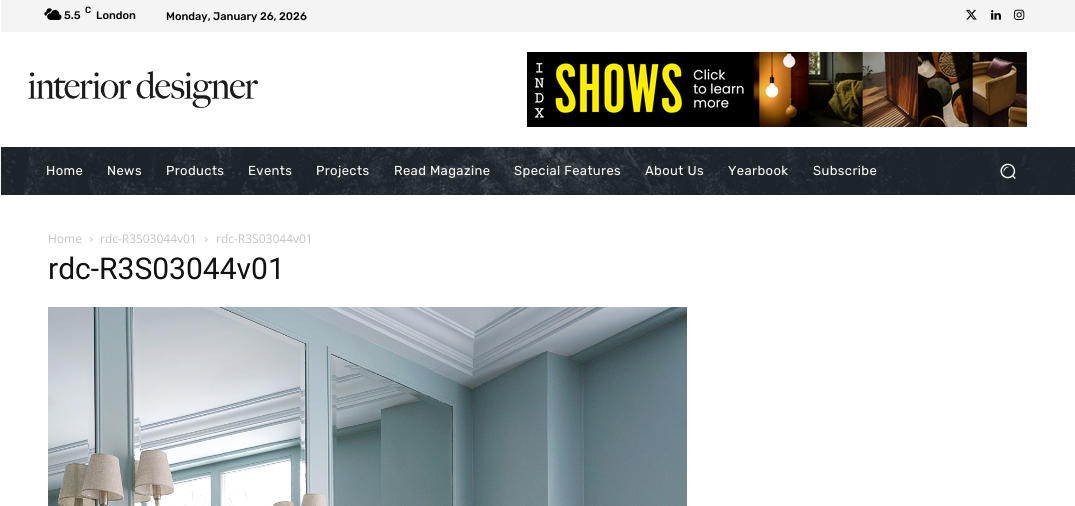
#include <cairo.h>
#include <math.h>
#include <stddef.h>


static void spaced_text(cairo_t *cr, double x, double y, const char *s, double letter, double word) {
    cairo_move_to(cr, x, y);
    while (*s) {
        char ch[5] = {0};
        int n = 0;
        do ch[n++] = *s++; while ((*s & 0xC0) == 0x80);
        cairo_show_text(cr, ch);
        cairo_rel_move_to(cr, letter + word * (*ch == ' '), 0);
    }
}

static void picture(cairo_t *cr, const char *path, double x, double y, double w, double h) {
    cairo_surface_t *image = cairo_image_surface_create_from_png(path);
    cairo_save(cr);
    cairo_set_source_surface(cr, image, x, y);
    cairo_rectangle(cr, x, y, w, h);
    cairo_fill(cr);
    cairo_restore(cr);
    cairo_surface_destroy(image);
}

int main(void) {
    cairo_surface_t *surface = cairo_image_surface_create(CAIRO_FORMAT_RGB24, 1075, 506);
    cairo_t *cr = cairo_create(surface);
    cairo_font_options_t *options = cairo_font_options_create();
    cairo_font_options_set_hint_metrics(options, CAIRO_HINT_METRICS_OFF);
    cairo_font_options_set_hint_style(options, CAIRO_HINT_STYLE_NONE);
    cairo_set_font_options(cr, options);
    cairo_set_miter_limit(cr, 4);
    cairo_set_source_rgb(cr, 1, 1, 1);
    cairo_paint(cr);
    cairo_set_source_rgb(cr, 0.957, 0.957, 0.957);
    cairo_rectangle(cr, 1, 0, 1074, 32);
    cairo_fill(cr);
    picture(cr, "img1.png", 44, 8, 18, 12);
    cairo_select_font_face(cr, "Rubik Medium", CAIRO_FONT_SLANT_NORMAL, CAIRO_FONT_WEIGHT_NORMAL);
    cairo_set_font_size(cr, 9);
    cairo_set_source_rgb(cr, 0, 0, 0);
    cairo_move_to(cr, 85, 13);
    cairo_show_text(cr, "C");
    cairo_set_font_size(cr, 11);
    cairo_move_to(cr, 64, 19);
    cairo_show_text(cr, "5.5");
    cairo_move_to(cr, 96, 19);
    cairo_show_text(cr, "London");
    cairo_move_to(cr, 166, 20);
    cairo_show_text(cr, "Monday, January 26, 2026");
    picture(cr, "img2.png", 966, 9, 11, 11);
    picture(cr, "img3.png", 991, 10, 10, 10);
    picture(cr, "img4.png", 1014, 9, 11, 11);
    picture(cr, "img5.png", 28, 71, 230, 37);
    picture(cr, "img6.png", 527, 52, 500, 75);
    cairo_set_source_rgb(cr, 0.137, 0.176, 0.208);
    cairo_rectangle(cr, 1, 147, 1074, 48);
    cairo_fill(cr);
    picture(cr, "img7.png", 0, 147, 1075, 48);
    cairo_select_font_face(cr, "Rubik", CAIRO_FONT_SLANT_NORMAL, CAIRO_FONT_WEIGHT_NORMAL);
    cairo_set_font_size(cr, 13);
    cairo_set_source_rgb(cr, 1, 1, 1);
    spaced_text(cr, 46, 175, "Home", 0.4, 0);
    spaced_text(cr, 107, 175, "News", 0.4, 0);
    spaced_text(cr, 166, 175, "Products", 0.4, 0);
    spaced_text(cr, 248, 175, "Events", 0.4, 0);
    spaced_text(cr, 316, 175, "Projects", 0.4, 0);
    spaced_text(cr, 394, 175, "Read Magazine", 0.4, 0);
    spaced_text(cr, 514, 175, "Special Features", 0.4, 0);
    spaced_text(cr, 645, 175, "About Us", 0.4, 0);
    spaced_text(cr, 728, 175, "Yearbook", 0.4, 0);
    spaced_text(cr, 813, 175, "Subscribe", 0.4, 0);
    picture(cr, "img8.png", 1000, 163, 16, 16);
    cairo_select_font_face(cr, "Open Sans", CAIRO_FONT_SLANT_NORMAL, CAIRO_FONT_WEIGHT_NORMAL);
    cairo_set_font_size(cr, 12);
    cairo_set_source_rgb(cr, 0.765, 0.765, 0.765);
    cairo_move_to(cr, 48, 243);
    cairo_show_text(cr, "Home");
    picture(cr, "img9.png", 90, 237, 3, 5);
    cairo_move_to(cr, 100, 243);
    cairo_show_text(cr, "rdc-R3S03044v01");
    picture(cr, "img9.png", 205, 237, 3, 5);
    cairo_move_to(cr, 216, 243);
    cairo_show_text(cr, "rdc-R3S03044v01");
    cairo_select_font_face(cr, "Roboto", CAIRO_FONT_SLANT_NORMAL, CAIRO_FONT_WEIGHT_NORMAL);
    cairo_set_font_size(cr, 30);
    cairo_set_source_rgb(cr, 0.067, 0.067, 0.067);
    cairo_move_to(cr, 48, 279);
    cairo_show_text(cr, "rdc-R3S03044v01");
    picture(cr, "img10.png", 48, 307, 639, 199);
    cairo_surface_write_to_png(surface, "page.png");
    cairo_font_options_destroy(options);
    cairo_destroy(cr);
    cairo_surface_destroy(surface);
    return 0;
}
